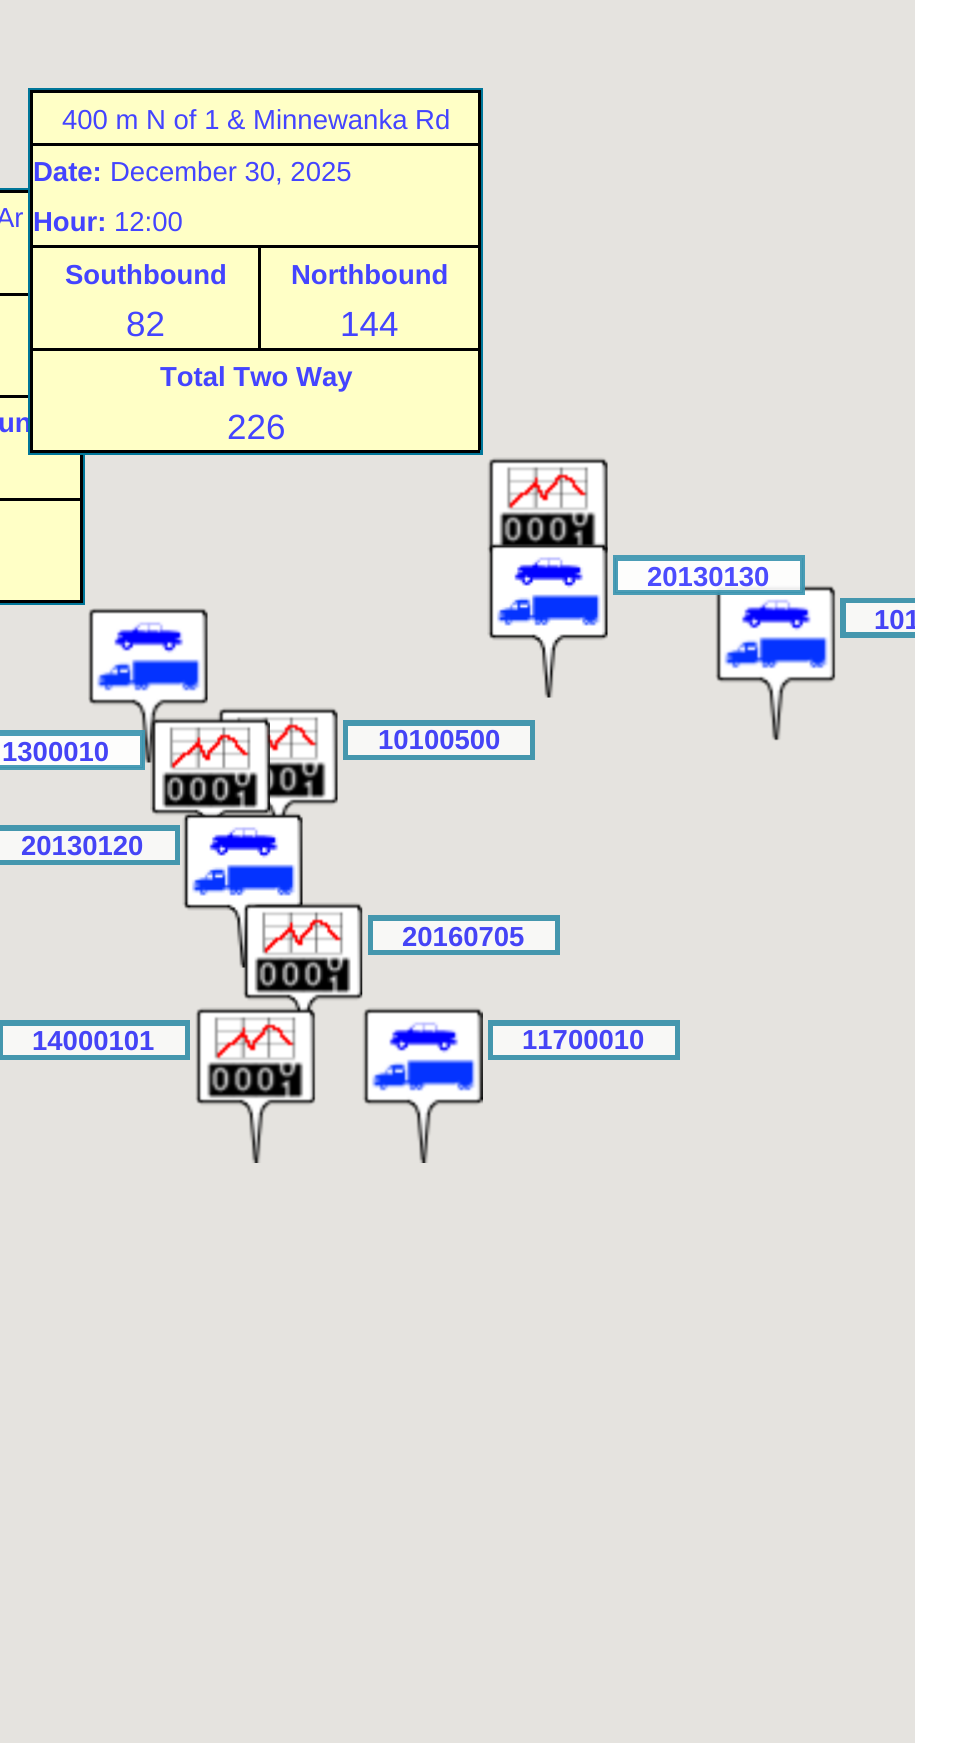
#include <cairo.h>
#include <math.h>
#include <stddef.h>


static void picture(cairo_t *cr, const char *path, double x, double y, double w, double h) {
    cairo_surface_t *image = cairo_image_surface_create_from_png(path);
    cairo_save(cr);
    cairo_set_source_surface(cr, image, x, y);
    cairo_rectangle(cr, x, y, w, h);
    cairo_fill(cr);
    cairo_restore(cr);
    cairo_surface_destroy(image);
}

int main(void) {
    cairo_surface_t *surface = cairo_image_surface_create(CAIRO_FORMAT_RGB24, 969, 1743);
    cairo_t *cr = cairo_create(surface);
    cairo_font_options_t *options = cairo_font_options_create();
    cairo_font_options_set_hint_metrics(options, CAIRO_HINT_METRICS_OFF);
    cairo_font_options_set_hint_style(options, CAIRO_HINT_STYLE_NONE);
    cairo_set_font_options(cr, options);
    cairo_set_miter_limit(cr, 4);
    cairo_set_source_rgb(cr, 1, 1, 1);
    cairo_paint(cr);
    cairo_set_source_rgb(cr, 0.898, 0.89, 0.875);
    cairo_rectangle(cr, 0, 0, 915, 1743);
    cairo_fill(cr);
    cairo_rectangle(cr, -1.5, 189.5, 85, 414);
    cairo_set_source_rgb(cr, 0, 0.463, 0.6);
    cairo_set_line_width(cr, 3);
    cairo_stroke(cr);
    cairo_set_source_rgb(cr, 1, 1, 0.776);
    cairo_rectangle(cr, 0, 193, 80, 407);
    cairo_fill(cr);
    cairo_set_source_rgb(cr, 0, 0, 0);
    cairo_rectangle(cr, 0, 600, 83, 3);
    cairo_fill(cr);
    cairo_rectangle(cr, 0, 190, 28, 3);
    cairo_fill(cr);
    cairo_select_font_face(cr, "Liberation Sans", CAIRO_FONT_SLANT_NORMAL, CAIRO_FONT_WEIGHT_NORMAL);
    cairo_set_font_size(cr, 27.5);
    cairo_set_source_rgb(cr, 0.267, 0.267, 1);
    cairo_move_to(cr, -4, 227);
    cairo_show_text(cr, "Ar");
    cairo_set_source_rgb(cr, 0, 0, 0);
    cairo_rectangle(cr, 0, 293, 28, 3);
    cairo_fill(cr);
    cairo_rectangle(cr, 0, 395, 28, 3);
    cairo_fill(cr);
    cairo_select_font_face(cr, "Liberation Sans", CAIRO_FONT_SLANT_NORMAL, CAIRO_FONT_WEIGHT_BOLD);
    cairo_set_source_rgb(cr, 0.267, 0.267, 1);
    cairo_move_to(cr, -2, 432);
    cairo_show_text(cr, "un");
    cairo_set_source_rgb(cr, 0, 0, 0);
    cairo_rectangle(cr, 80, 448, 3, 50);
    cairo_fill(cr);
    cairo_rectangle(cr, 0, 498, 83, 3);
    cairo_fill(cr);
    cairo_rectangle(cr, 80, 498, 3, 102);
    cairo_fill(cr);
    cairo_rectangle(cr, 29.5, 89.5, 452, 364);
    cairo_set_source_rgb(cr, 0, 0.463, 0.6);
    cairo_stroke(cr);
    cairo_set_source_rgb(cr, 1, 1, 0.776);
    cairo_rectangle(cr, 33, 93, 445, 357);
    cairo_fill(cr);
    cairo_set_source_rgb(cr, 0, 0, 0);
    cairo_rectangle(cr, 30, 450, 450, 3);
    cairo_fill(cr);
    cairo_rectangle(cr, 30, 90, 3, 363);
    cairo_fill(cr);
    cairo_rectangle(cr, 33, 90, 447, 3);
    cairo_fill(cr);
    cairo_rectangle(cr, 478, 90, 3, 53);
    cairo_fill(cr);
    cairo_select_font_face(cr, "Liberation Sans", CAIRO_FONT_SLANT_NORMAL, CAIRO_FONT_WEIGHT_NORMAL);
    cairo_set_source_rgb(cr, 0.267, 0.267, 1);
    cairo_move_to(cr, 62, 129);
    cairo_show_text(cr, "400 m N of 1 & Minnewanka Rd");
    cairo_set_source_rgb(cr, 0, 0, 0);
    cairo_rectangle(cr, 33, 143, 447, 3);
    cairo_fill(cr);
    cairo_rectangle(cr, 478, 143, 3, 102);
    cairo_fill(cr);
    cairo_select_font_face(cr, "Liberation Sans", CAIRO_FONT_SLANT_NORMAL, CAIRO_FONT_WEIGHT_BOLD);
    cairo_set_source_rgb(cr, 0.267, 0.267, 1);
    cairo_move_to(cr, 33, 181);
    cairo_show_text(cr, "Date:");
    cairo_select_font_face(cr, "Liberation Sans", CAIRO_FONT_SLANT_NORMAL, CAIRO_FONT_WEIGHT_NORMAL);
    cairo_move_to(cr, 110, 181);
    cairo_show_text(cr, "December 30, 2025");
    cairo_select_font_face(cr, "Liberation Sans", CAIRO_FONT_SLANT_NORMAL, CAIRO_FONT_WEIGHT_BOLD);
    cairo_move_to(cr, 33, 231);
    cairo_show_text(cr, "Hour:");
    cairo_select_font_face(cr, "Liberation Sans", CAIRO_FONT_SLANT_NORMAL, CAIRO_FONT_WEIGHT_NORMAL);
    cairo_move_to(cr, 114, 231);
    cairo_show_text(cr, "12:00");
    cairo_set_source_rgb(cr, 0, 0, 0);
    cairo_rectangle(cr, 33, 245, 227, 3);
    cairo_fill(cr);
    cairo_rectangle(cr, 258, 245, 3, 103);
    cairo_fill(cr);
    cairo_select_font_face(cr, "Liberation Sans", CAIRO_FONT_SLANT_NORMAL, CAIRO_FONT_WEIGHT_BOLD);
    cairo_set_source_rgb(cr, 0.267, 0.267, 1);
    cairo_move_to(cr, 65, 284);
    cairo_show_text(cr, "Southbound");
    cairo_set_source_rgb(cr, 0, 0, 0);
    cairo_rectangle(cr, 260, 245, 220, 3);
    cairo_fill(cr);
    cairo_rectangle(cr, 478, 245, 3, 103);
    cairo_fill(cr);
    cairo_set_source_rgb(cr, 0.267, 0.267, 1);
    cairo_move_to(cr, 291, 284);
    cairo_show_text(cr, "Northbound");
    cairo_select_font_face(cr, "Liberation Sans", CAIRO_FONT_SLANT_NORMAL, CAIRO_FONT_WEIGHT_NORMAL);
    cairo_set_font_size(cr, 35);
    cairo_move_to(cr, 126, 336);
    cairo_show_text(cr, "82");
    cairo_move_to(cr, 340, 336);
    cairo_show_text(cr, "144");
    cairo_set_source_rgb(cr, 0, 0, 0);
    cairo_rectangle(cr, 33, 348, 447, 3);
    cairo_fill(cr);
    cairo_rectangle(cr, 478, 348, 3, 102);
    cairo_fill(cr);
    cairo_select_font_face(cr, "Liberation Sans", CAIRO_FONT_SLANT_NORMAL, CAIRO_FONT_WEIGHT_BOLD);
    cairo_set_font_size(cr, 27.5);
    cairo_set_source_rgb(cr, 0.267, 0.267, 1);
    cairo_move_to(cr, 160, 386);
    cairo_show_text(cr, "Total Two Way");
    cairo_select_font_face(cr, "Liberation Sans", CAIRO_FONT_SLANT_NORMAL, CAIRO_FONT_WEIGHT_NORMAL);
    cairo_set_font_size(cr, 35);
    cairo_move_to(cr, 227, 439);
    cairo_show_text(cr, "226");
    picture(cr, "img6.png", 715, 585, 121, 156);
    cairo_set_source_rgba(cr, 1, 1, 1, 0.7);
    cairo_rectangle(cr, 613, 555, 192, 40);
    cairo_fill(cr);
    cairo_rectangle(cr, 614.5, 556.5, 189, 37);
    cairo_set_source_rgba(cr, 0, 0.463, 0.6, 0.7);
    cairo_stroke(cr);
    cairo_set_source_rgba(cr, 1, 1, 1, 0.7);
    cairo_rectangle(cr, 615, 558, 188, 35);
    cairo_fill(cr);
    cairo_rectangle(cr, 616.5, 559.5, 185, 32);
    cairo_set_source_rgba(cr, 0, 0.463, 0.6, 0.7);
    cairo_stroke(cr);
    cairo_select_font_face(cr, "Liberation Sans", CAIRO_FONT_SLANT_NORMAL, CAIRO_FONT_WEIGHT_BOLD);
    cairo_set_font_size(cr, 27.5);
    cairo_set_source_rgb(cr, 0.298, 0.298, 0.996);
    cairo_move_to(cr, 647, 586);
    cairo_show_text(cr, "20130130");
    cairo_save(cr);
    cairo_rectangle(cr, 0, 0, 915, 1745);
    cairo_clip(cr);
    cairo_rectangle(cr, 841.5, 599.5, 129, 37);
    cairo_set_source_rgb(cr, 0.271, 0.592, 0.682);
    cairo_stroke(cr);
    cairo_restore(cr);
    cairo_set_source_rgb(cr, 0.969, 0.969, 0.961);
    cairo_rectangle(cr, 846, 603, 69, 29);
    cairo_fill(cr);
    cairo_save(cr);
    cairo_rectangle(cr, 0, 0, 915, 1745);
    cairo_clip(cr);
    cairo_rectangle(cr, 844.5, 601.5, 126, 32);
    cairo_set_source_rgb(cr, 0.271, 0.592, 0.682);
    cairo_stroke(cr);
    cairo_set_source_rgb(cr, 0.271, 0.267, 0.961);
    cairo_move_to(cr, 874, 629);
    cairo_show_text(cr, "101");
    cairo_restore(cr);
    picture(cr, "img2.png", 88, 608, 120, 155);
    cairo_set_source_rgba(cr, 1, 1, 1, 0.7);
    cairo_rectangle(cr, 0, 730, 145, 40);
    cairo_fill(cr);
    cairo_rectangle(cr, -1.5, 731.5, 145, 37);
    cairo_set_source_rgba(cr, 0, 0.463, 0.6, 0.7);
    cairo_stroke(cr);
    cairo_set_source_rgba(cr, 1, 1, 1, 0.7);
    cairo_rectangle(cr, 0, 733, 143, 35);
    cairo_fill(cr);
    cairo_rectangle(cr, -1.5, 734.5, 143, 32);
    cairo_set_source_rgba(cr, 0, 0.463, 0.6, 0.7);
    cairo_stroke(cr);
    cairo_set_source_rgb(cr, 0.271, 0.267, 0.961);
    cairo_move_to(cr, 2, 761);
    cairo_show_text(cr, "1300010");
    cairo_rectangle(cr, 344.5, 721.5, 189, 37);
    cairo_set_source_rgb(cr, 0.271, 0.592, 0.682);
    cairo_stroke(cr);
    cairo_set_source_rgb(cr, 0.969, 0.969, 0.961);
    cairo_rectangle(cr, 346.5, 724.5, 185, 32);
    cairo_fill_preserve(cr);
    cairo_set_source_rgb(cr, 0.271, 0.592, 0.682);
    cairo_stroke(cr);
    cairo_set_source_rgb(cr, 0.271, 0.267, 0.961);
    cairo_move_to(cr, 378, 749);
    cairo_show_text(cr, "10100500");
    cairo_rectangle(cr, -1.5, 826.5, 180, 37);
    cairo_set_source_rgb(cr, 0.271, 0.592, 0.682);
    cairo_stroke(cr);
    cairo_set_source_rgb(cr, 0.969, 0.969, 0.961);
    cairo_rectangle(cr, -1.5, 829.5, 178, 32);
    cairo_fill_preserve(cr);
    cairo_set_source_rgb(cr, 0.271, 0.592, 0.682);
    cairo_stroke(cr);
    cairo_set_source_rgb(cr, 0.271, 0.267, 0.961);
    cairo_move_to(cr, 21, 855);
    cairo_show_text(cr, "20130120");
    cairo_rectangle(cr, 369.5, 916.5, 189, 37);
    cairo_set_source_rgb(cr, 0.271, 0.592, 0.682);
    cairo_stroke(cr);
    cairo_set_source_rgb(cr, 0.969, 0.969, 0.961);
    cairo_rectangle(cr, 371.5, 919.5, 185, 32);
    cairo_fill_preserve(cr);
    cairo_set_source_rgb(cr, 0.271, 0.592, 0.682);
    cairo_stroke(cr);
    cairo_set_source_rgb(cr, 0.271, 0.267, 0.961);
    cairo_move_to(cr, 402, 946);
    cairo_show_text(cr, "20160705");
    cairo_rectangle(cr, -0.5, 1021.5, 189, 37);
    cairo_set_source_rgb(cr, 0.271, 0.592, 0.682);
    cairo_stroke(cr);
    cairo_set_source_rgb(cr, 0.969, 0.969, 0.961);
    cairo_rectangle(cr, 1.5, 1024.5, 185, 32);
    cairo_fill_preserve(cr);
    cairo_set_source_rgb(cr, 0.271, 0.592, 0.682);
    cairo_stroke(cr);
    cairo_set_source_rgb(cr, 0.271, 0.267, 0.961);
    cairo_move_to(cr, 32, 1050);
    cairo_show_text(cr, "14000101");
    cairo_rectangle(cr, 489.5, 1021.5, 189, 37);
    cairo_set_source_rgb(cr, 0.271, 0.592, 0.682);
    cairo_stroke(cr);
    cairo_set_source_rgb(cr, 0.969, 0.969, 0.961);
    cairo_rectangle(cr, 491.5, 1024.5, 185, 32);
    cairo_fill_preserve(cr);
    cairo_set_source_rgb(cr, 0.271, 0.592, 0.682);
    cairo_stroke(cr);
    cairo_set_source_rgb(cr, 0.271, 0.267, 0.961);
    cairo_move_to(cr, 522, 1049);
    cairo_show_text(cr, "11700010");
    picture(cr, "img1.png", 487, 457, 121, 99);
    picture(cr, "img4.png", 217, 707, 121, 112);
    picture(cr, "img3.png", 150, 717, 120, 102);
    picture(cr, "img5.png", 487, 542, 121, 156);
    picture(cr, "img7.png", 182, 812, 121, 156);
    picture(cr, "img8.png", 242, 902, 121, 112);
    picture(cr, "img9.png", 195, 1007, 121, 156);
    picture(cr, "img10.png", 362, 1007, 121, 156);
    cairo_surface_write_to_png(surface, "page.png");
    cairo_font_options_destroy(options);
    cairo_destroy(cr);
    cairo_surface_destroy(surface);
    return 0;
}
